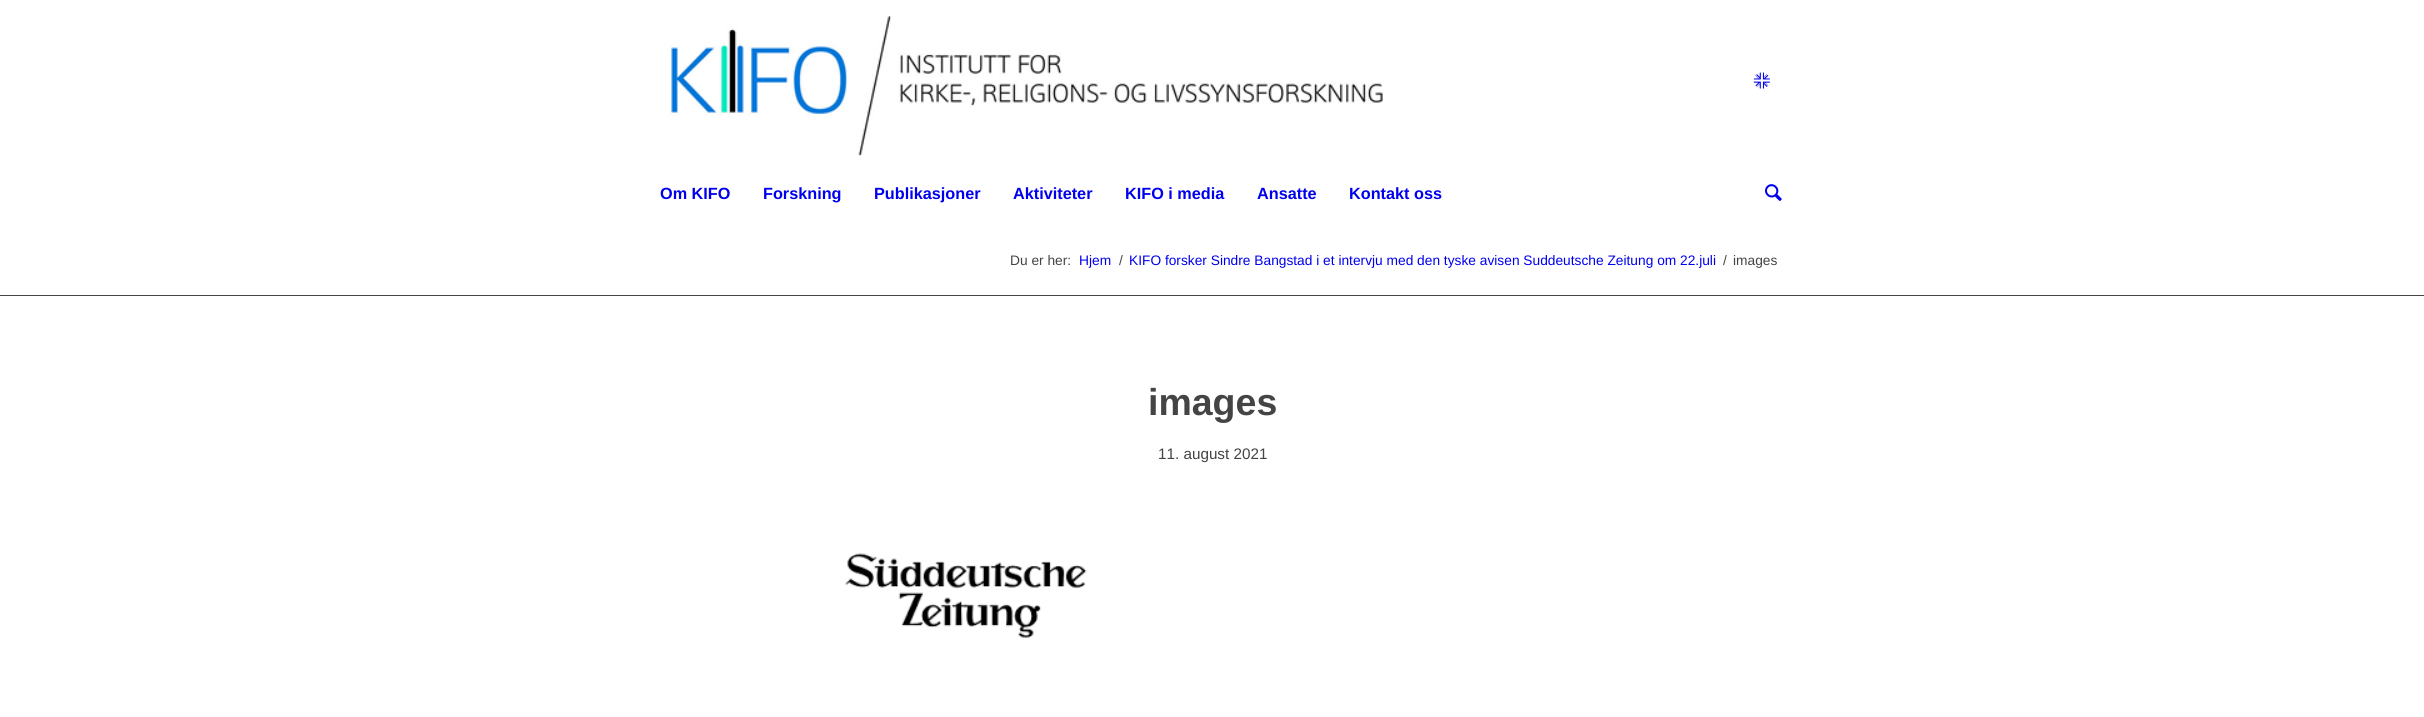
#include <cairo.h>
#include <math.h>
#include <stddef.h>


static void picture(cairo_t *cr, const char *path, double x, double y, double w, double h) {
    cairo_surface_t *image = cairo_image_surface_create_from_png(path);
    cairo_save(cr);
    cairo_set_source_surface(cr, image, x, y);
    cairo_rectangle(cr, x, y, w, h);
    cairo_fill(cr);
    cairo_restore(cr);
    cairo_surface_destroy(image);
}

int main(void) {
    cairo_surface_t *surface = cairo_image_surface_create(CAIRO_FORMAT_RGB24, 2424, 717);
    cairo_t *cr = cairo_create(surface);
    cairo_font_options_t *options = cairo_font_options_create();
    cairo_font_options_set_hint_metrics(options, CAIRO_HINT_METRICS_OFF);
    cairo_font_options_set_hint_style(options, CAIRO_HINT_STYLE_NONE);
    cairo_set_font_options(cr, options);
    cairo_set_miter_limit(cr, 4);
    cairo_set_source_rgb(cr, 1, 1, 1);
    cairo_paint(cr);
    picture(cr, "img1.png", 669, 16, 714, 140);
    picture(cr, "img2.png", 1753, 72, 17, 17);
    cairo_select_font_face(cr, "Liberation Sans", CAIRO_FONT_SLANT_NORMAL, CAIRO_FONT_WEIGHT_BOLD);
    cairo_set_font_size(cr, 16.25);
    cairo_set_source_rgb(cr, 0, 0, 0.933);
    cairo_move_to(cr, 660, 199);
    cairo_show_text(cr, "Om KIFO");
    cairo_move_to(cr, 763, 199);
    cairo_show_text(cr, "Forskning");
    cairo_move_to(cr, 874, 199);
    cairo_show_text(cr, "Publikasjoner");
    cairo_move_to(cr, 1013, 199);
    cairo_show_text(cr, "Aktiviteter");
    cairo_move_to(cr, 1125, 199);
    cairo_show_text(cr, "KIFO i media");
    cairo_move_to(cr, 1257, 199);
    cairo_show_text(cr, "Ansatte");
    cairo_move_to(cr, 1349, 199);
    cairo_show_text(cr, "Kontakt oss");
    picture(cr, "img3.png", 1765, 184, 17, 17);
    cairo_select_font_face(cr, "Liberation Sans", CAIRO_FONT_SLANT_NORMAL, CAIRO_FONT_WEIGHT_NORMAL);
    cairo_set_font_size(cr, 13.75);
    cairo_set_source_rgb(cr, 0.267, 0.267, 0.267);
    cairo_move_to(cr, 1010, 265);
    cairo_show_text(cr, "Du er her:");
    cairo_set_source_rgb(cr, 0, 0, 0.933);
    cairo_move_to(cr, 1079, 265);
    cairo_show_text(cr, "Hjem");
    cairo_set_source_rgb(cr, 0.267, 0.267, 0.267);
    cairo_move_to(cr, 1119, 265);
    cairo_show_text(cr, "/");
    cairo_set_source_rgb(cr, 0, 0, 0.933);
    cairo_move_to(cr, 1129, 265);
    cairo_show_text(cr, "KIFO forsker Sindre Bangstad i et intervju med den tyske avisen Suddeutsche Zeitung om 22.juli");
    cairo_set_source_rgb(cr, 0.267, 0.267, 0.267);
    cairo_move_to(cr, 1723, 265);
    cairo_show_text(cr, "/");
    cairo_move_to(cr, 1733, 265);
    cairo_show_text(cr, "images");
    cairo_rectangle(cr, 0, 295, 2424, 1);
    cairo_fill(cr);
    cairo_select_font_face(cr, "Liberation Sans", CAIRO_FONT_SLANT_NORMAL, CAIRO_FONT_WEIGHT_BOLD);
    cairo_set_font_size(cr, 37.5);
    cairo_move_to(cr, 1148, 415);
    cairo_show_text(cr, "images");
    cairo_select_font_face(cr, "Liberation Sans", CAIRO_FONT_SLANT_NORMAL, CAIRO_FONT_WEIGHT_NORMAL);
    cairo_set_font_size(cr, 15.25);
    cairo_move_to(cr, 1158, 459);
    cairo_show_text(cr, "11. august 2021");
    picture(cr, "img4.png", 845, 552, 242, 87);
    cairo_surface_write_to_png(surface, "page.png");
    cairo_font_options_destroy(options);
    cairo_destroy(cr);
    cairo_surface_destroy(surface);
    return 0;
}
